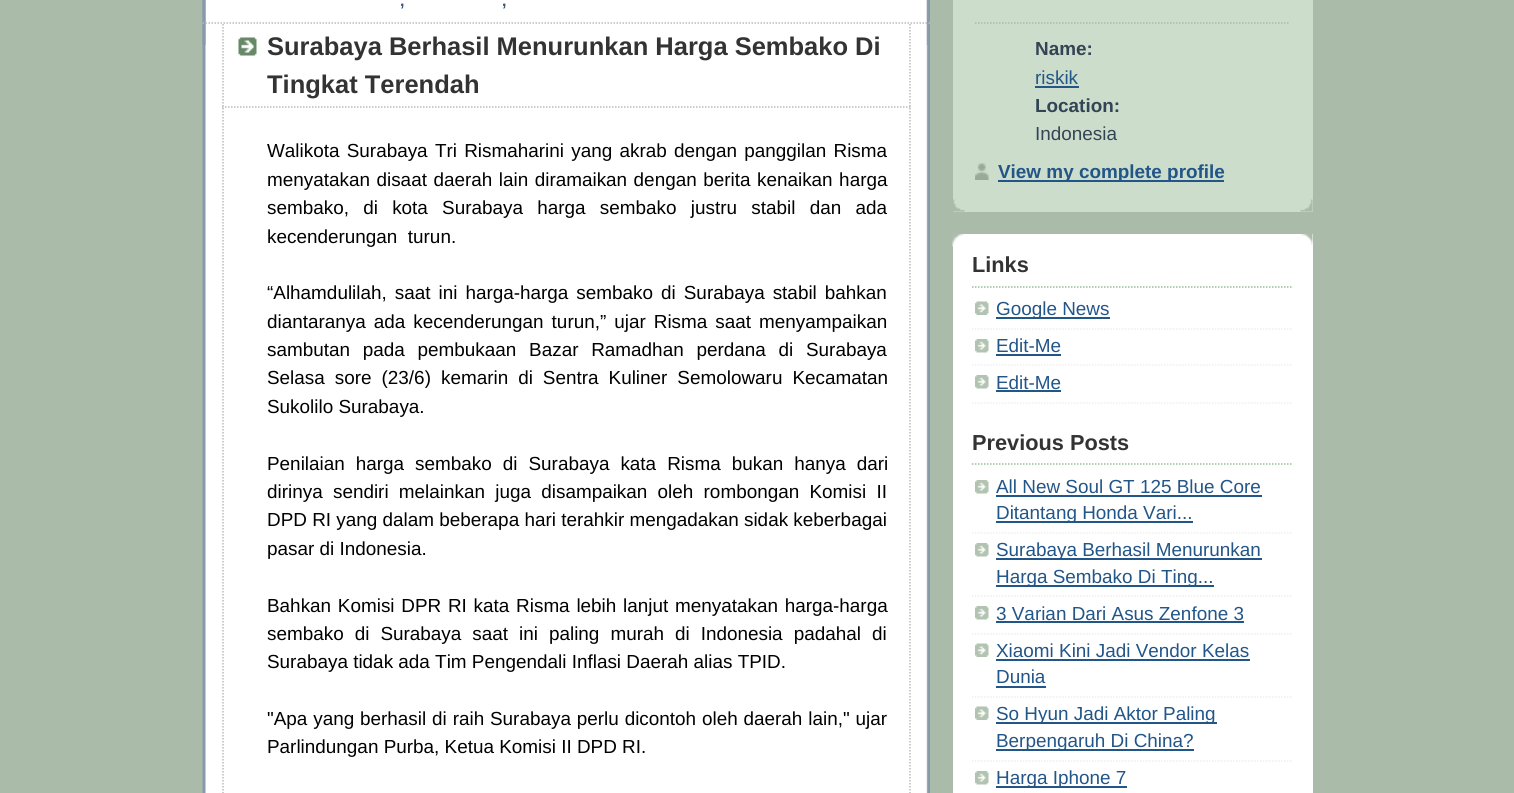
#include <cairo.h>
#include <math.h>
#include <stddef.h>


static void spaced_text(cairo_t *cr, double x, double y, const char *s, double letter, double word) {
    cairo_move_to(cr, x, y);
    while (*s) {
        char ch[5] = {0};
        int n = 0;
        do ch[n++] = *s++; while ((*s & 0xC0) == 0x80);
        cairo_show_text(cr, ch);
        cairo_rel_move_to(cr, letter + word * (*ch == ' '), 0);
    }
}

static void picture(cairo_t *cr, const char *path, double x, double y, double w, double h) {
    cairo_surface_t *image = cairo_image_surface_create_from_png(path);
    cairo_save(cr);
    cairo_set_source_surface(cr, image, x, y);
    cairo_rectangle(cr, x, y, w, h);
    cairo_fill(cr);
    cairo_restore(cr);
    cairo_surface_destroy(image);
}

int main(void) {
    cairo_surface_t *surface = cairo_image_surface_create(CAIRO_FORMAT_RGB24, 1514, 793);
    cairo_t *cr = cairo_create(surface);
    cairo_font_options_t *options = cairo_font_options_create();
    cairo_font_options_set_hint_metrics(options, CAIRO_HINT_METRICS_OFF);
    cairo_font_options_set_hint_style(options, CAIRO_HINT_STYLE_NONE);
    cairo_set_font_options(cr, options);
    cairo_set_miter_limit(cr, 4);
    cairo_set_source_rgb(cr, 0.667, 0.733, 0.667);
    cairo_paint(cr);
    cairo_set_source_rgb(cr, 1, 1, 1);
    cairo_rectangle(cr, 205, 0, 723, 793);
    cairo_fill(cr);
    picture(cr, "img1.png", 202, 0, 726, 45);
    picture(cr, "img2.png", 202, 0, 728, 793);
    cairo_select_font_face(cr, "Liberation Sans", CAIRO_FONT_SLANT_NORMAL, CAIRO_FONT_WEIGHT_BOLD);
    cairo_set_font_size(cr, 16);
    cairo_set_source_rgb(cr, 0.2, 0.333, 0.467);
    spaced_text(cr, 400, 6, ",", 3, 0);
    spaced_text(cr, 502, 6, ",", 3, 0);
    cairo_new_path(cr);
    cairo_move_to(cr, 202.5, 23);
    cairo_line_to(cr, 930, 23);
    cairo_set_source_rgb(cr, 0.733, 0.733, 0.733);
    cairo_set_line_width(cr, 1.5);
    cairo_set_dash(cr, (double[]){1.5, 1.5}, 2, 0);
    cairo_stroke(cr);
    picture(cr, "img3.png", 238, 37, 19, 19);
    cairo_new_path(cr);
    cairo_move_to(cr, 910, 24);
    cairo_line_to(cr, 910, 108);
    cairo_stroke(cr);
    cairo_new_path(cr);
    cairo_move_to(cr, 222, 107);
    cairo_line_to(cr, 910.5, 107);
    cairo_stroke(cr);
    cairo_new_path(cr);
    cairo_move_to(cr, 223, 24);
    cairo_line_to(cr, 223, 108);
    cairo_stroke(cr);
    cairo_set_font_size(cr, 25.5);
    cairo_set_source_rgb(cr, 0.2, 0.2, 0.2);
    cairo_move_to(cr, 267, 55);
    cairo_show_text(cr, "Surabaya Berhasil Menurunkan Harga Sembako Di");
    cairo_move_to(cr, 267, 93);
    cairo_show_text(cr, "Tingkat Terendah");
    cairo_new_path(cr);
    cairo_move_to(cr, 910, 108);
    cairo_line_to(cr, 910, 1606.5);
    cairo_set_source_rgb(cr, 0.733, 0.733, 0.733);
    cairo_stroke(cr);
    cairo_new_path(cr);
    cairo_move_to(cr, 223, 108);
    cairo_line_to(cr, 223, 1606.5);
    cairo_stroke(cr);
    cairo_select_font_face(cr, "Liberation Sans", CAIRO_FONT_SLANT_NORMAL, CAIRO_FONT_WEIGHT_NORMAL);
    cairo_set_font_size(cr, 18.9);
    cairo_set_source_rgb(cr, 0, 0, 0);
    spaced_text(cr, 267, 157, "Walikota Surabaya Tri Rismaharini yang akrab dengan panggilan Risma", 0, 2);
    spaced_text(cr, 267, 186, "menyatakan disaat daerah lain diramaikan dengan berita kenaikan harga", 0, 1.25);
    spaced_text(cr, 267, 214, "sembako, di kota Surabaya harga sembako justru stabil dan ada", 0, 9);
    cairo_move_to(cr, 267, 243);
    cairo_show_text(cr, "kecenderungan  turun.");
    spaced_text(cr, 267, 299, "“Alhamdulilah, saat ini harga-harga sembako di Surabaya stabil bahkan", 0, 2.75);
    spaced_text(cr, 267, 328, "diantaranya ada kecenderungan turun,” ujar Risma saat menyampaikan", 0, 2.75);
    spaced_text(cr, 267, 356, "sambutan pada pembukaan Bazar Ramadhan perdana di Surabaya", 0, 7.5);
    spaced_text(cr, 267, 384, "Selasa sore (23/6) kemarin di Sentra Kuliner Semolowaru Kecamatan", 0, 4.75);
    cairo_move_to(cr, 267, 413);
    cairo_show_text(cr, "Sukolilo Surabaya.");
    spaced_text(cr, 267, 470, "Penilaian harga sembako di Surabaya kata Risma bukan hanya dari", 0, 5.75);
    spaced_text(cr, 267, 498, "dirinya sendiri melainkan juga disampaikan oleh rombongan Komisi II", 0, 5);
    cairo_move_to(cr, 267, 526);
    cairo_show_text(cr, "DPD RI yang dalam beberapa hari terahkir mengadakan sidak keberbagai");
    cairo_move_to(cr, 267, 555);
    cairo_show_text(cr, "pasar di Indonesia.");
    spaced_text(cr, 267, 612, "Bahkan Komisi DPR RI kata Risma lebih lanjut menyatakan harga-harga", 0, 1.5);
    spaced_text(cr, 267, 640, "sembako di Surabaya saat ini paling murah di Indonesia padahal di", 0, 5.75);
    cairo_move_to(cr, 267, 668);
    cairo_show_text(cr, "Surabaya tidak ada Tim Pengendali Inflasi Daerah alias TPID.");
    spaced_text(cr, 267, 725, "\"Apa yang berhasil di raih Surabaya perlu dicontoh oleh daerah lain,\" ujar", 0, 0.6);
    cairo_move_to(cr, 267, 753);
    cairo_show_text(cr, "Parlindungan Purba, Ketua Komisi II DPD RI.");
    cairo_set_source_rgb(cr, 0.8, 0.867, 0.8);
    cairo_rectangle(cr, 953, 0, 360, 212);
    cairo_fill(cr);
    picture(cr, "img4.png", 953, 199, 360, 13);
    cairo_new_path(cr);
    cairo_move_to(cr, 975, 23);
    cairo_line_to(cr, 1290, 23);
    cairo_set_source_rgb(cr, 0.667, 0.733, 0.667);
    cairo_stroke(cr);
    cairo_select_font_face(cr, "Liberation Sans", CAIRO_FONT_SLANT_NORMAL, CAIRO_FONT_WEIGHT_BOLD);
    cairo_set_source_rgb(cr, 0.2, 0.267, 0.333);
    cairo_move_to(cr, 1035, 55);
    cairo_show_text(cr, "Name:");
    cairo_select_font_face(cr, "Liberation Sans", CAIRO_FONT_SLANT_NORMAL, CAIRO_FONT_WEIGHT_NORMAL);
    cairo_set_source_rgb(cr, 0.133, 0.333, 0.533);
    cairo_move_to(cr, 1035, 84);
    cairo_show_text(cr, "riskik");
    cairo_rectangle(cr, 1035, 86, 44, 2);
    cairo_fill(cr);
    cairo_select_font_face(cr, "Liberation Sans", CAIRO_FONT_SLANT_NORMAL, CAIRO_FONT_WEIGHT_BOLD);
    cairo_set_source_rgb(cr, 0.2, 0.267, 0.333);
    cairo_move_to(cr, 1035, 112);
    cairo_show_text(cr, "Location:");
    cairo_select_font_face(cr, "Liberation Sans", CAIRO_FONT_SLANT_NORMAL, CAIRO_FONT_WEIGHT_NORMAL);
    cairo_move_to(cr, 1035, 140);
    cairo_show_text(cr, "Indonesia");
    picture(cr, "img5.png", 975, 163, 14, 17);
    cairo_set_source_rgb(cr, 0.133, 0.333, 0.533);
    cairo_rectangle(cr, 998, 180, 226, 2);
    cairo_fill(cr);
    cairo_select_font_face(cr, "Liberation Sans", CAIRO_FONT_SLANT_NORMAL, CAIRO_FONT_WEIGHT_BOLD);
    cairo_move_to(cr, 998, 178);
    cairo_show_text(cr, "View my complete profile");
    cairo_set_source_rgb(cr, 1, 1, 1);
    cairo_rectangle(cr, 953, 234, 360, 559);
    cairo_fill(cr);
    picture(cr, "img6.png", 952, 234, 361, 13);
    cairo_new_path(cr);
    cairo_move_to(cr, 972, 287);
    cairo_line_to(cr, 1293, 287);
    cairo_set_source_rgb(cr, 0.6, 0.733, 0.6);
    cairo_stroke(cr);
    cairo_set_font_size(cr, 21.75);
    cairo_set_source_rgb(cr, 0.2, 0.2, 0.2);
    cairo_move_to(cr, 972, 272);
    cairo_show_text(cr, "Links");
    picture(cr, "img7.png", 975, 301, 14, 14);
    cairo_new_path(cr);
    cairo_move_to(cr, 972, 329);
    cairo_line_to(cr, 1293, 329);
    cairo_set_source_rgb(cr, 0.933, 0.933, 0.933);
    cairo_stroke(cr);
    cairo_set_source_rgb(cr, 0.133, 0.333, 0.533);
    cairo_rectangle(cr, 996, 317, 114, 2);
    cairo_fill(cr);
    cairo_select_font_face(cr, "Liberation Sans", CAIRO_FONT_SLANT_NORMAL, CAIRO_FONT_WEIGHT_NORMAL);
    cairo_set_font_size(cr, 18.9);
    cairo_move_to(cr, 996, 315);
    cairo_show_text(cr, "Google News");
    picture(cr, "img8.png", 975, 339, 14, 14);
    cairo_new_path(cr);
    cairo_move_to(cr, 972, 365);
    cairo_line_to(cr, 1293, 365);
    cairo_set_source_rgb(cr, 0.933, 0.933, 0.933);
    cairo_stroke(cr);
    cairo_set_source_rgb(cr, 0.133, 0.333, 0.533);
    cairo_move_to(cr, 996, 352);
    cairo_show_text(cr, "Edit-Me");
    cairo_rectangle(cr, 996, 354, 65, 2);
    cairo_fill(cr);
    picture(cr, "img8.png", 975, 375, 14, 14);
    cairo_new_path(cr);
    cairo_move_to(cr, 972, 403);
    cairo_line_to(cr, 1293, 403);
    cairo_set_source_rgb(cr, 0.933, 0.933, 0.933);
    cairo_stroke(cr);
    cairo_set_source_rgb(cr, 0.133, 0.333, 0.533);
    cairo_move_to(cr, 996, 389);
    cairo_show_text(cr, "Edit-Me");
    cairo_rectangle(cr, 996, 390, 65, 2);
    cairo_fill(cr);
    cairo_new_path(cr);
    cairo_move_to(cr, 972, 464);
    cairo_line_to(cr, 1293, 464);
    cairo_set_source_rgb(cr, 0.6, 0.733, 0.6);
    cairo_stroke(cr);
    cairo_select_font_face(cr, "Liberation Sans", CAIRO_FONT_SLANT_NORMAL, CAIRO_FONT_WEIGHT_BOLD);
    cairo_set_font_size(cr, 21.75);
    cairo_set_source_rgb(cr, 0.2, 0.2, 0.2);
    cairo_move_to(cr, 972, 450);
    cairo_show_text(cr, "Previous Posts");
    picture(cr, "img8.png", 975, 480, 14, 14);
    cairo_new_path(cr);
    cairo_move_to(cr, 972, 533);
    cairo_line_to(cr, 1293, 533);
    cairo_set_source_rgb(cr, 0.933, 0.933, 0.933);
    cairo_stroke(cr);
    cairo_select_font_face(cr, "Liberation Sans", CAIRO_FONT_SLANT_NORMAL, CAIRO_FONT_WEIGHT_NORMAL);
    cairo_set_font_size(cr, 18.9);
    cairo_set_source_rgb(cr, 0.133, 0.333, 0.533);
    cairo_move_to(cr, 996, 493);
    cairo_show_text(cr, "All New Soul GT 125 Blue Core");
    cairo_rectangle(cr, 996, 495, 266, 2);
    cairo_fill(cr);
    cairo_rectangle(cr, 996, 521, 197, 2);
    cairo_fill(cr);
    cairo_move_to(cr, 996, 519);
    cairo_show_text(cr, "Ditantang Honda Vari...");
    picture(cr, "img8.png", 975, 543, 14, 14);
    cairo_new_path(cr);
    cairo_move_to(cr, 972, 596);
    cairo_line_to(cr, 1293, 596);
    cairo_set_source_rgb(cr, 0.933, 0.933, 0.933);
    cairo_stroke(cr);
    cairo_set_source_rgb(cr, 0.133, 0.333, 0.533);
    cairo_rectangle(cr, 996, 558, 266, 2);
    cairo_fill(cr);
    cairo_move_to(cr, 996, 556);
    cairo_show_text(cr, "Surabaya Berhasil Menurunkan");
    cairo_rectangle(cr, 996, 585, 218, 2);
    cairo_fill(cr);
    cairo_move_to(cr, 996, 583);
    cairo_show_text(cr, "Harga Sembako Di Ting...");
    picture(cr, "img8.png", 975, 606, 14, 14);
    cairo_new_path(cr);
    cairo_move_to(cr, 972, 634);
    cairo_line_to(cr, 1293, 634);
    cairo_set_source_rgb(cr, 0.933, 0.933, 0.933);
    cairo_stroke(cr);
    cairo_set_source_rgb(cr, 0.133, 0.333, 0.533);
    cairo_move_to(cr, 996, 620);
    cairo_show_text(cr, "3 Varian Dari Asus Zenfone 3");
    cairo_rectangle(cr, 996, 621, 248, 2);
    cairo_fill(cr);
    picture(cr, "img7.png", 975, 643, 14, 14);
    cairo_new_path(cr);
    cairo_move_to(cr, 972, 697);
    cairo_line_to(cr, 1293, 697);
    cairo_set_source_rgb(cr, 0.933, 0.933, 0.933);
    cairo_stroke(cr);
    cairo_set_source_rgb(cr, 0.133, 0.333, 0.533);
    cairo_move_to(cr, 996, 657);
    cairo_show_text(cr, "Xiaomi Kini Jadi Vendor Kelas");
    cairo_rectangle(cr, 996, 659, 254, 2);
    cairo_fill(cr);
    cairo_move_to(cr, 996, 683);
    cairo_show_text(cr, "Dunia");
    cairo_rectangle(cr, 996, 686, 50, 2);
    cairo_fill(cr);
    picture(cr, "img7.png", 975, 706, 14, 14);
    cairo_new_path(cr);
    cairo_move_to(cr, 972, 761);
    cairo_line_to(cr, 1293, 761);
    cairo_set_source_rgb(cr, 0.933, 0.933, 0.933);
    cairo_stroke(cr);
    cairo_set_source_rgb(cr, 0.133, 0.333, 0.533);
    cairo_rectangle(cr, 996, 722, 221, 2);
    cairo_fill(cr);
    cairo_move_to(cr, 996, 720);
    cairo_show_text(cr, "So Hyun Jadi Aktor Paling");
    cairo_rectangle(cr, 996, 749, 198, 2);
    cairo_fill(cr);
    cairo_move_to(cr, 996, 747);
    cairo_show_text(cr, "Berpengaruh Di China?");
    picture(cr, "img8.png", 975, 771, 14, 14);
    cairo_rectangle(cr, 996, 786, 131, 2);
    cairo_fill(cr);
    cairo_move_to(cr, 996, 784);
    cairo_show_text(cr, "Harga Iphone 7");
    cairo_surface_write_to_png(surface, "page.png");
    cairo_font_options_destroy(options);
    cairo_destroy(cr);
    cairo_surface_destroy(surface);
    return 0;
}
